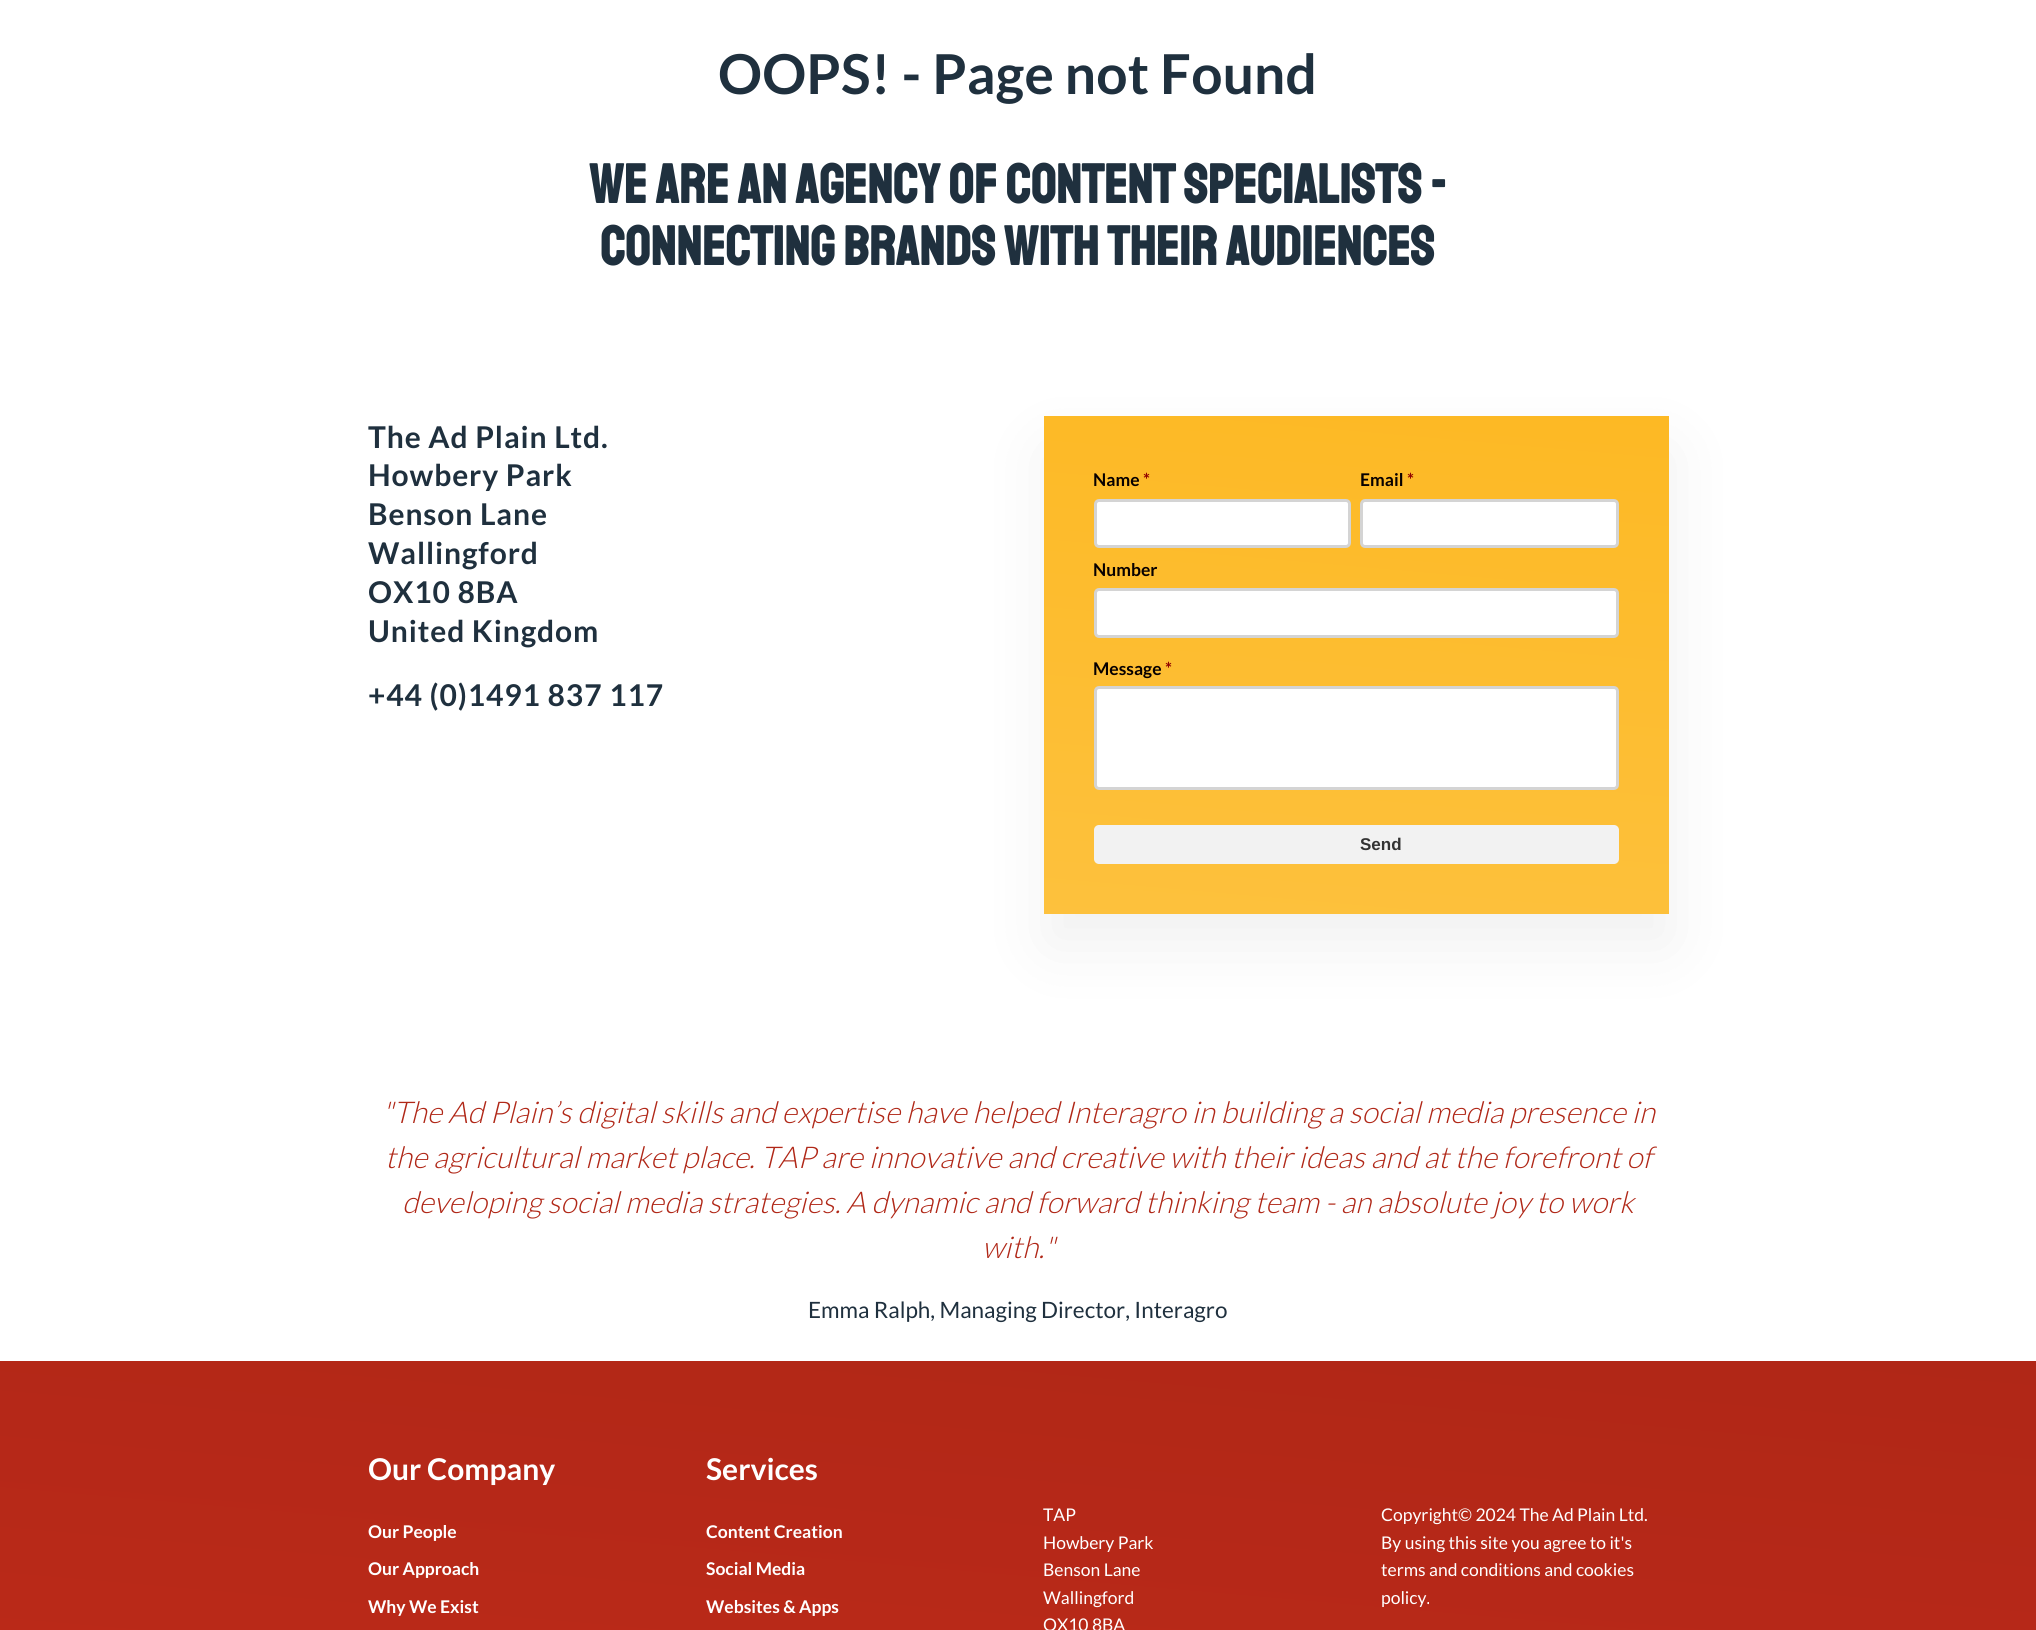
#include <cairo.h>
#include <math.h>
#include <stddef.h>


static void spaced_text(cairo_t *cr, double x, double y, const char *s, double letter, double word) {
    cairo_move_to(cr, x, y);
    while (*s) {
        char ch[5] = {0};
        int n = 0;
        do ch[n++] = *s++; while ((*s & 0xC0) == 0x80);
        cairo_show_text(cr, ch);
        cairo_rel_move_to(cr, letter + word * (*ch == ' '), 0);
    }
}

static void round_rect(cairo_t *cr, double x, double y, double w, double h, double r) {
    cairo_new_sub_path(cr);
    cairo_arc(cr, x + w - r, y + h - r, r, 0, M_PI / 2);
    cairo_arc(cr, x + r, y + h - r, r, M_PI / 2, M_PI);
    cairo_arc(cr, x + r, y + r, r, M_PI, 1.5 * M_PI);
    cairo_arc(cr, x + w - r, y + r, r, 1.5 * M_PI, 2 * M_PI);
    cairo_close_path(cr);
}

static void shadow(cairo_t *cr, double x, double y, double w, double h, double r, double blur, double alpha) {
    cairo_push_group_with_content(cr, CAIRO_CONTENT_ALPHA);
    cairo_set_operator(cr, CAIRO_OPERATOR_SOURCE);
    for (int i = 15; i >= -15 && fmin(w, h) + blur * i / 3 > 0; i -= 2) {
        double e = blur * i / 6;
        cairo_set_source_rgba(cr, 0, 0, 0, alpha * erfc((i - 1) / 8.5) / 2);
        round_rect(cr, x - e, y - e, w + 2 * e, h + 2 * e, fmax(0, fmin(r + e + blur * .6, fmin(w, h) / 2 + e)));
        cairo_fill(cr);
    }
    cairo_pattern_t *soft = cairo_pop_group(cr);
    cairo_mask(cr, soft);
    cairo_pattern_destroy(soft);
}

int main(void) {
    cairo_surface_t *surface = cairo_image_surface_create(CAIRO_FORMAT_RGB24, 2036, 1630);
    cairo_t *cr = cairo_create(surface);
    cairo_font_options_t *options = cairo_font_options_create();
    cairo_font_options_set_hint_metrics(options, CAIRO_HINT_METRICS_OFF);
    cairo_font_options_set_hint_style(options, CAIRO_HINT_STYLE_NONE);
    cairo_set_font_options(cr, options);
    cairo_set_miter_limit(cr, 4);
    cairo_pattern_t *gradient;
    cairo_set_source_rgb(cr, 1, 1, 1);
    cairo_paint(cr);
    cairo_select_font_face(cr, "Lato", CAIRO_FONT_SLANT_NORMAL, CAIRO_FONT_WEIGHT_BOLD);
    cairo_set_font_size(cr, 55);
    cairo_set_source_rgb(cr, 0.122, 0.188, 0.243);
    spaced_text(cr, 718, 94, "OOPS! - Page not Found", 0.2, 0);
    cairo_select_font_face(cr, "Staatliches", CAIRO_FONT_SLANT_NORMAL, CAIRO_FONT_WEIGHT_BOLD);
    spaced_text(cr, 589, 203, "We are an agency of content specialists -", 0.2, 0);
    spaced_text(cr, 600, 265, "connecting brands with their audiences", 0.2, 0);
    cairo_select_font_face(cr, "Lato", CAIRO_FONT_SLANT_NORMAL, CAIRO_FONT_WEIGHT_BOLD);
    cairo_set_font_size(cr, 30);
    spaced_text(cr, 368, 448, "The Ad Plain Ltd.", 0.9, 0);
    spaced_text(cr, 368, 486, "Howbery Park", 0.9, 0);
    spaced_text(cr, 368, 525, "Benson Lane", 0.9, 0);
    spaced_text(cr, 368, 564, "Wallingford", 0.9, 0);
    spaced_text(cr, 368, 603, "OX10 8BA", 0.9, 0);
    spaced_text(cr, 368, 642, "United Kingdom", 0.9, 0);
    spaced_text(cr, 368, 706, "+44 (0)1491 837 117", 0.9, 0);
    cairo_set_source_rgb(cr, 0, 0, 0);
    shadow(cr, 1046, 449, 625, 497, 0, 35, 0.06);
    gradient = cairo_pattern_create_linear(1332, 939, 1380, 391);
    cairo_pattern_add_color_stop_rgba(gradient, 0, 0.992, 0.757, 0.239, 1);
    cairo_pattern_add_color_stop_rgba(gradient, 1, 0.992, 0.725, 0.141, 1);
    cairo_set_source(cr, gradient);
    cairo_pattern_destroy(gradient);
    cairo_rectangle(cr, 1044, 416, 625, 498);
    cairo_fill(cr);
    cairo_set_font_size(cr, 17.5);
    cairo_set_source_rgb(cr, 0.031, 0, 0);
    cairo_move_to(cr, 1093, 486);
    cairo_show_text(cr, "Name");
    cairo_set_source_rgb(cr, 0.561, 0, 0);
    cairo_move_to(cr, 1143, 486);
    cairo_show_text(cr, "*");
    cairo_set_source_rgb(cr, 1, 1, 1);
    round_rect(cr, 1095.5, 500.5, 254, 46, 3.5);
    cairo_fill_preserve(cr);
    cairo_set_source_rgb(cr, 0.831, 0.831, 0.831);
    cairo_set_line_width(cr, 3);
    cairo_stroke(cr);
    cairo_set_source_rgb(cr, 0.031, 0, 0);
    cairo_move_to(cr, 1360, 486);
    cairo_show_text(cr, "Email");
    cairo_set_source_rgb(cr, 0.561, 0, 0);
    cairo_move_to(cr, 1407, 486);
    cairo_show_text(cr, "*");
    cairo_set_source_rgb(cr, 1, 1, 1);
    round_rect(cr, 1361.5, 500.5, 256, 46, 3.5);
    cairo_fill_preserve(cr);
    cairo_set_source_rgb(cr, 0.831, 0.831, 0.831);
    cairo_stroke(cr);
    cairo_set_source_rgb(cr, 0.031, 0, 0);
    cairo_move_to(cr, 1093, 576);
    cairo_show_text(cr, "Number");
    cairo_set_source_rgb(cr, 1, 1, 1);
    round_rect(cr, 1095.5, 589.5, 522, 47, 3.5);
    cairo_fill_preserve(cr);
    cairo_set_source_rgb(cr, 0.831, 0.831, 0.831);
    cairo_stroke(cr);
    cairo_set_source_rgb(cr, 0.031, 0, 0);
    cairo_move_to(cr, 1093, 675);
    cairo_show_text(cr, "Message");
    cairo_set_source_rgb(cr, 0.561, 0, 0);
    cairo_move_to(cr, 1165, 675);
    cairo_show_text(cr, "*");
    cairo_set_source_rgb(cr, 1, 1, 1);
    round_rect(cr, 1095.5, 687.5, 522, 101, 3.5);
    cairo_fill_preserve(cr);
    cairo_set_source_rgb(cr, 0.831, 0.831, 0.831);
    cairo_stroke(cr);
    cairo_set_source_rgb(cr, 0.949, 0.949, 0.949);
    round_rect(cr, 1094, 825, 525, 39, 5);
    cairo_fill(cr);
    cairo_select_font_face(cr, "Liberation Sans", CAIRO_FONT_SLANT_NORMAL, CAIRO_FONT_WEIGHT_BOLD);
    cairo_set_font_size(cr, 17);
    cairo_set_source_rgb(cr, 0.2, 0.2, 0.2);
    cairo_move_to(cr, 1360, 850);
    cairo_show_text(cr, "Send");
    cairo_select_font_face(cr, "Lato Light", CAIRO_FONT_SLANT_ITALIC, CAIRO_FONT_WEIGHT_NORMAL);
    cairo_set_font_size(cr, 30);
    cairo_set_source_rgb(cr, 0.69, 0.153, 0.09);
    cairo_move_to(cr, 382, 1123);
    cairo_show_text(cr, "\"The Ad Plain’s digital skills and expertise have helped Interagro in building a social media presence in");
    cairo_move_to(cr, 385, 1168);
    cairo_show_text(cr, "the agricultural market place. TAP are innovative and creative with their ideas and at the forefront of");
    cairo_move_to(cr, 402, 1213);
    cairo_show_text(cr, "developing social media strategies. A dynamic and forward thinking team - an absolute joy to work");
    cairo_move_to(cr, 982, 1258);
    cairo_show_text(cr, "with.\"");
    cairo_select_font_face(cr, "Lato", CAIRO_FONT_SLANT_NORMAL, CAIRO_FONT_WEIGHT_NORMAL);
    cairo_set_font_size(cr, 22.5);
    cairo_set_source_rgb(cr, 0.122, 0.188, 0.243);
    cairo_move_to(cr, 808, 1318);
    cairo_show_text(cr, "Emma Ralph, Managing Director, Interagro");
    gradient = cairo_pattern_create_linear(973, 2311, 1063, 1276);
    cairo_pattern_add_color_stop_rgba(gradient, 0, 0.78, 0.173, 0.102, 1);
    cairo_pattern_add_color_stop_rgba(gradient, 1, 0.69, 0.153, 0.09, 1);
    cairo_set_source(cr, gradient);
    cairo_pattern_destroy(gradient);
    cairo_rectangle(cr, 0, 1361, 2036, 269);
    cairo_fill(cr);
    cairo_select_font_face(cr, "Lato", CAIRO_FONT_SLANT_NORMAL, CAIRO_FONT_WEIGHT_BOLD);
    cairo_set_font_size(cr, 30);
    cairo_set_source_rgb(cr, 1, 1, 1);
    cairo_move_to(cr, 368, 1480);
    cairo_show_text(cr, "Our Company");
    cairo_set_font_size(cr, 17.5);
    cairo_move_to(cr, 368, 1538);
    cairo_show_text(cr, "Our People");
    cairo_move_to(cr, 368, 1575);
    cairo_show_text(cr, "Our Approach");
    cairo_move_to(cr, 368, 1613);
    cairo_show_text(cr, "Why We Exist");
    cairo_set_font_size(cr, 30);
    cairo_move_to(cr, 706, 1480);
    cairo_show_text(cr, "Services");
    cairo_set_font_size(cr, 17.5);
    cairo_move_to(cr, 706, 1538);
    cairo_show_text(cr, "Content Creation");
    cairo_move_to(cr, 706, 1575);
    cairo_show_text(cr, "Social Media");
    cairo_move_to(cr, 706, 1613);
    cairo_show_text(cr, "Websites & Apps");
    cairo_select_font_face(cr, "Lato", CAIRO_FONT_SLANT_NORMAL, CAIRO_FONT_WEIGHT_NORMAL);
    cairo_move_to(cr, 1043, 1521);
    cairo_show_text(cr, "TAP");
    cairo_move_to(cr, 1043, 1549);
    cairo_show_text(cr, "Howbery Park");
    cairo_move_to(cr, 1043, 1576);
    cairo_show_text(cr, "Benson Lane");
    cairo_move_to(cr, 1043, 1604);
    cairo_show_text(cr, "Wallingford");
    cairo_move_to(cr, 1043, 1631);
    cairo_show_text(cr, "OX10 8BA");
    cairo_move_to(cr, 1381, 1521);
    cairo_show_text(cr, "Copyright© 2024 The Ad Plain Ltd.");
    cairo_move_to(cr, 1381, 1549);
    cairo_show_text(cr, "By using this site you agree to it's");
    cairo_move_to(cr, 1381, 1576);
    cairo_show_text(cr, "terms and conditions and cookies");
    cairo_move_to(cr, 1381, 1604);
    cairo_show_text(cr, "policy.");
    cairo_surface_write_to_png(surface, "page.png");
    cairo_font_options_destroy(options);
    cairo_destroy(cr);
    cairo_surface_destroy(surface);
    return 0;
}
